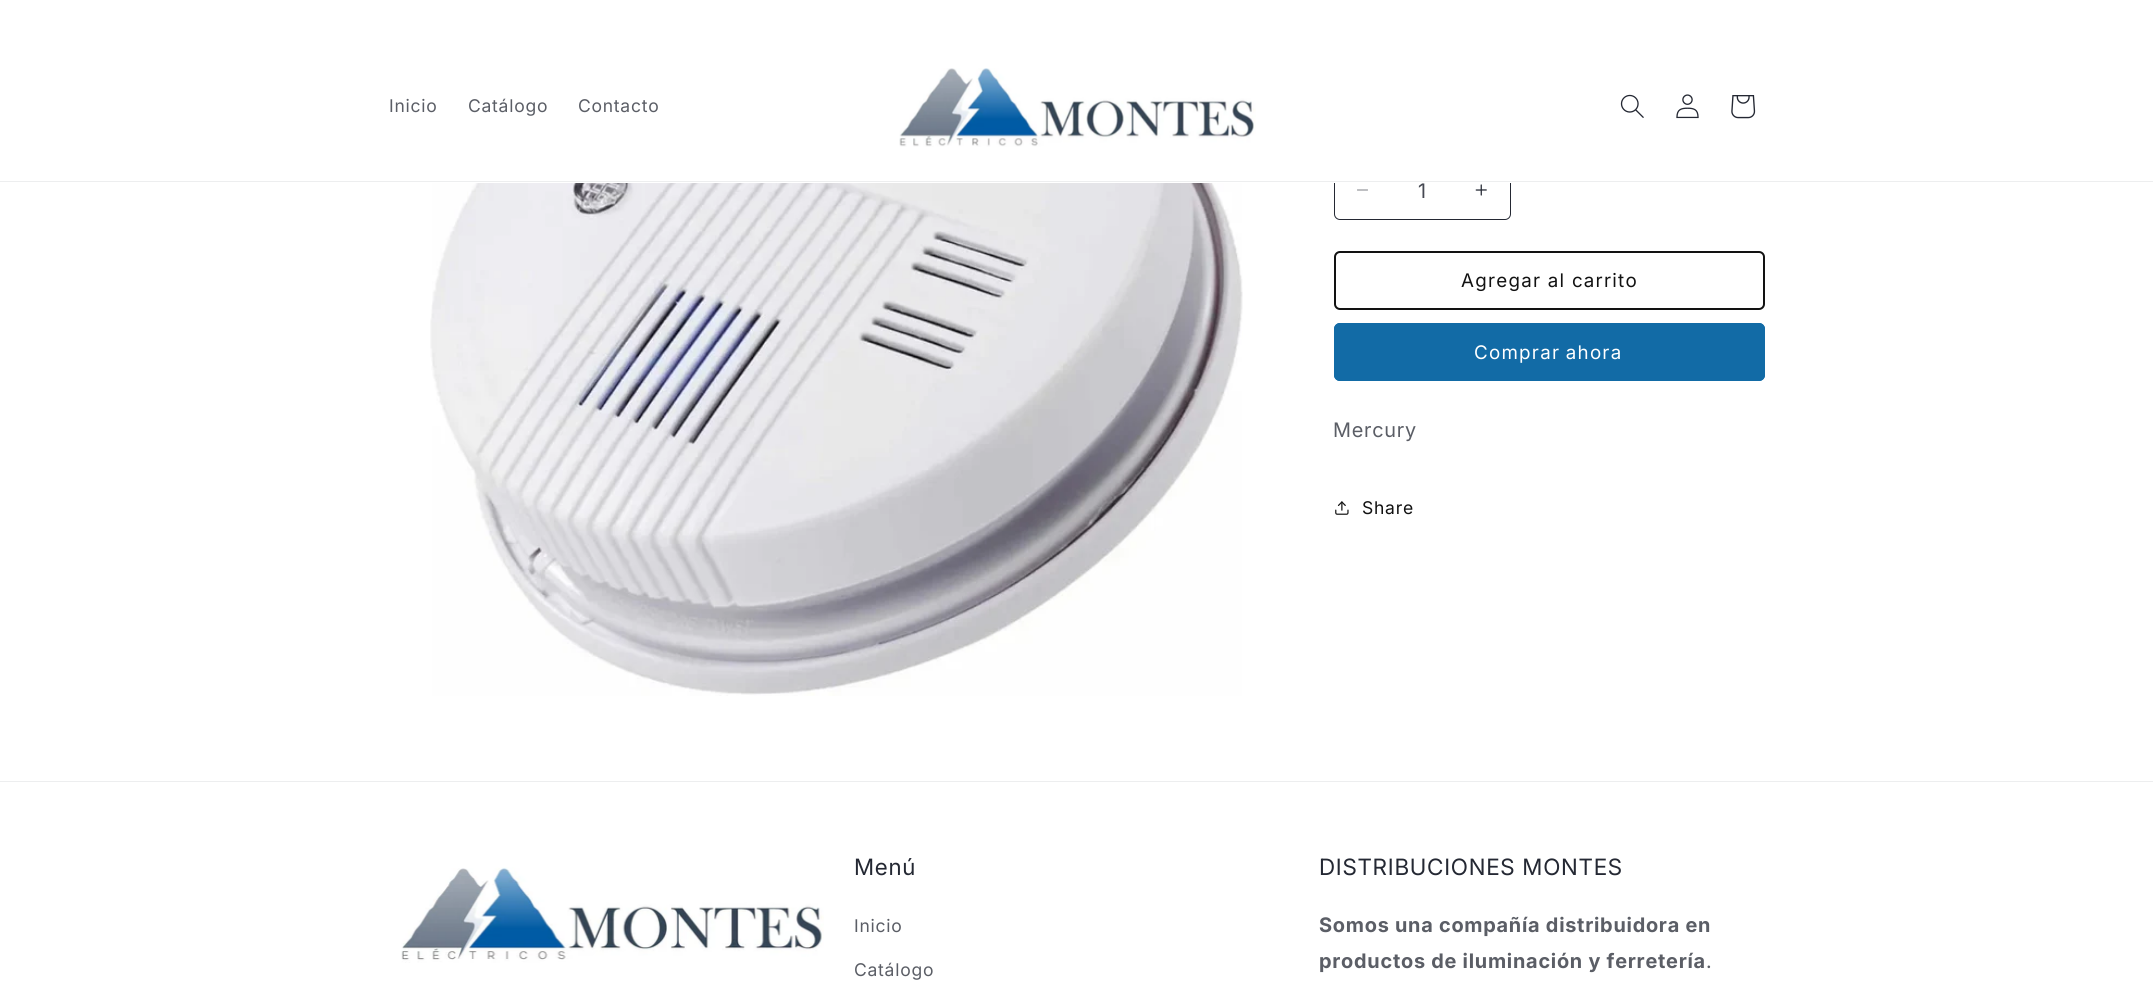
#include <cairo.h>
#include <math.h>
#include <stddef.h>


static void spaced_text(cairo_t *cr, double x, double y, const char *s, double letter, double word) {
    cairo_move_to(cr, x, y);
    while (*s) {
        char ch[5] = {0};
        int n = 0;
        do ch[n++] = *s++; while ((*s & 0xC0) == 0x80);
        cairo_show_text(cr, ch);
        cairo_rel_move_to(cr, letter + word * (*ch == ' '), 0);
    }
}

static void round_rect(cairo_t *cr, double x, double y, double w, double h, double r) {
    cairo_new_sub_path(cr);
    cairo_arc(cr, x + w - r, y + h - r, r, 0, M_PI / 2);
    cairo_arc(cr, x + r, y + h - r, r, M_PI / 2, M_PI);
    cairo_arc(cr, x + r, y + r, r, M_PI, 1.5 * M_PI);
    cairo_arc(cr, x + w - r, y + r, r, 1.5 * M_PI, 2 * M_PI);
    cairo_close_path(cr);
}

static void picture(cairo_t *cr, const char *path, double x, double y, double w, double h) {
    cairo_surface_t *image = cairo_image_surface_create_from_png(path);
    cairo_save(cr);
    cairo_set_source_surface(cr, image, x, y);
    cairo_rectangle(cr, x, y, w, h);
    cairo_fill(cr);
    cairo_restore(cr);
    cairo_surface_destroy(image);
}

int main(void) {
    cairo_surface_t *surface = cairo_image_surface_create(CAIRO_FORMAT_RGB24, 2153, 990);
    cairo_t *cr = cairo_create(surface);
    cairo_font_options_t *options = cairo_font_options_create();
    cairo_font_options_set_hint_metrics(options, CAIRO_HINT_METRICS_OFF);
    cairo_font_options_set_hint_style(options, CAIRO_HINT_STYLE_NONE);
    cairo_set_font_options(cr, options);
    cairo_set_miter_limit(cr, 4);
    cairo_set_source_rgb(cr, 1, 1, 1);
    cairo_paint(cr);
    picture(cr, "img6.png", 1357, 189, 11, 2);
    picture(cr, "img7.png", 1475, 184, 12, 12);
    round_rect(cr, 1334.5, 161.5, 176, 58, 5.5);
    cairo_set_source_rgb(cr, 0.141, 0.157, 0.2);
    cairo_set_line_width(cr, 1);
    cairo_stroke(cr);
    cairo_set_source_rgb(cr, 1, 1, 1);
    cairo_rectangle(cr, 1334, 161, 177, 22);
    cairo_fill(cr);
    cairo_set_source_rgb(cr, 0.929, 0.933, 0.937);
    cairo_rectangle(cr, 0, 181, 2153, 1);
    cairo_fill(cr);
    cairo_select_font_face(cr, "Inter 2", CAIRO_FONT_SLANT_NORMAL, CAIRO_FONT_WEIGHT_NORMAL);
    cairo_set_font_size(cr, 17.5);
    cairo_set_source_rgb(cr, 0.357, 0.369, 0.4);
    spaced_text(cr, 389, 112, "Inicio", 0.75, 0);
    spaced_text(cr, 468, 112, "Catálogo", 0.75, 0);
    spaced_text(cr, 578, 112, "Contacto", 0.75, 0);
    picture(cr, "img1.png", 899, 68, 357, 79);
    picture(cr, "img2.png", 1620, 94, 24, 24);
    picture(cr, "img3.png", 1676, 94, 23, 25);
    picture(cr, "img4.png", 1731, 95, 25, 24);
    picture(cr, "img5.png", 430, 183, 813, 513);
    cairo_select_font_face(cr, "Inter", CAIRO_FONT_SLANT_NORMAL, CAIRO_FONT_WEIGHT_NORMAL);
    cairo_set_font_size(cr, 20);
    cairo_set_source_rgb(cr, 0.271, 0.282, 0.322);
    cairo_move_to(cr, 1418, 198);
    cairo_show_text(cr, "1");
    round_rect(cr, 1335, 252, 429, 57, 5);
    cairo_set_source_rgb(cr, 0.071, 0.071, 0.071);
    cairo_set_line_width(cr, 2);
    cairo_stroke(cr);
    cairo_select_font_face(cr, "Inter 2", CAIRO_FONT_SLANT_NORMAL, CAIRO_FONT_WEIGHT_NORMAL);
    cairo_set_font_size(cr, 18.75);
    spaced_text(cr, 1461, 287, "Agregar al carrito", 1.25, 0);
    cairo_set_source_rgb(cr, 0.071, 0.42, 0.651);
    round_rect(cr, 1334, 323, 431, 58, 6);
    cairo_fill(cr);
    round_rect(cr, 1334.5, 323.5, 430, 57, 5.5);
    cairo_set_line_width(cr, 1);
    cairo_stroke(cr);
    cairo_set_source_rgb(cr, 1, 1, 1);
    spaced_text(cr, 1474, 359, "Comprar ahora", 1.25, -1);
    cairo_select_font_face(cr, "Inter", CAIRO_FONT_SLANT_NORMAL, CAIRO_FONT_WEIGHT_NORMAL);
    cairo_set_font_size(cr, 20);
    cairo_set_source_rgb(cr, 0.357, 0.369, 0.4);
    spaced_text(cr, 1333, 437, "Mercury", 0.75, 0);
    picture(cr, "img8.png", 1335, 501, 14, 14);
    cairo_select_font_face(cr, "Inter 2", CAIRO_FONT_SLANT_NORMAL, CAIRO_FONT_WEIGHT_NORMAL);
    cairo_set_font_size(cr, 17.5);
    cairo_set_source_rgb(cr, 0.071, 0.071, 0.071);
    spaced_text(cr, 1362, 514, "Share", 0.75, 0);
    cairo_set_source_rgb(cr, 0.929, 0.933, 0.937);
    cairo_rectangle(cr, 0, 781, 2153, 1);
    cairo_fill(cr);
    picture(cr, "img9.png", 401, 867, 423, 96);
    cairo_select_font_face(cr, "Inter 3", CAIRO_FONT_SLANT_NORMAL, CAIRO_FONT_WEIGHT_NORMAL);
    cairo_set_font_size(cr, 22.5);
    cairo_set_source_rgb(cr, 0.141, 0.157, 0.2);
    spaced_text(cr, 854, 875, "Menú", 0.75, 0);
    cairo_select_font_face(cr, "Inter 2", CAIRO_FONT_SLANT_NORMAL, CAIRO_FONT_WEIGHT_NORMAL);
    cairo_set_font_size(cr, 17.5);
    cairo_set_source_rgb(cr, 0.357, 0.369, 0.4);
    spaced_text(cr, 854, 932, "Inicio", 0.75, 0);
    spaced_text(cr, 854, 976, "Catálogo", 0.75, 0);
    cairo_select_font_face(cr, "Inter 3", CAIRO_FONT_SLANT_NORMAL, CAIRO_FONT_WEIGHT_NORMAL);
    cairo_set_font_size(cr, 22.5);
    cairo_set_source_rgb(cr, 0.141, 0.157, 0.2);
    spaced_text(cr, 1319, 875, "DISTRIBUCIONES MONTES", 0.75, 0);
    cairo_select_font_face(cr, "Inter", CAIRO_FONT_SLANT_NORMAL, CAIRO_FONT_WEIGHT_BOLD);
    cairo_set_font_size(cr, 20);
    cairo_set_source_rgb(cr, 0.357, 0.369, 0.4);
    spaced_text(cr, 1319, 932, "Somos una compañía distribuidora en", 0.75, 0);
    spaced_text(cr, 1319, 968, "productos de iluminación y ferretería", 0.75, 0);
    cairo_select_font_face(cr, "Inter", CAIRO_FONT_SLANT_NORMAL, CAIRO_FONT_WEIGHT_NORMAL);
    spaced_text(cr, 1706, 968, ".", 0.75, 0);
    cairo_surface_write_to_png(surface, "page.png");
    cairo_font_options_destroy(options);
    cairo_destroy(cr);
    cairo_surface_destroy(surface);
    return 0;
}
